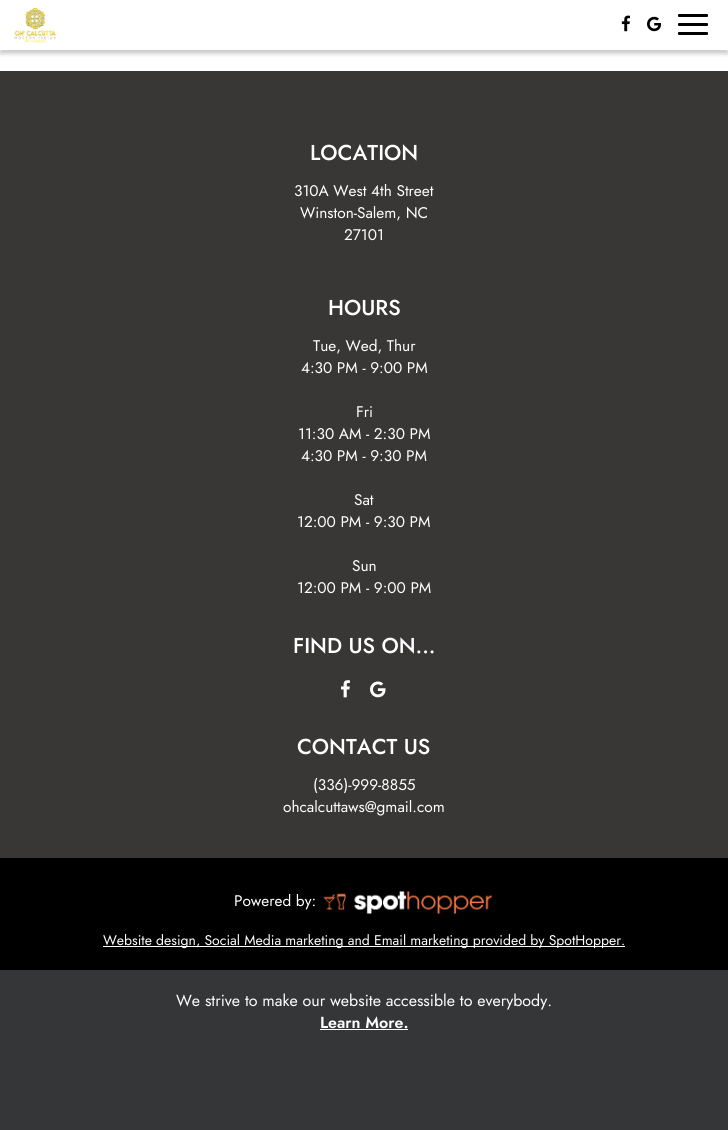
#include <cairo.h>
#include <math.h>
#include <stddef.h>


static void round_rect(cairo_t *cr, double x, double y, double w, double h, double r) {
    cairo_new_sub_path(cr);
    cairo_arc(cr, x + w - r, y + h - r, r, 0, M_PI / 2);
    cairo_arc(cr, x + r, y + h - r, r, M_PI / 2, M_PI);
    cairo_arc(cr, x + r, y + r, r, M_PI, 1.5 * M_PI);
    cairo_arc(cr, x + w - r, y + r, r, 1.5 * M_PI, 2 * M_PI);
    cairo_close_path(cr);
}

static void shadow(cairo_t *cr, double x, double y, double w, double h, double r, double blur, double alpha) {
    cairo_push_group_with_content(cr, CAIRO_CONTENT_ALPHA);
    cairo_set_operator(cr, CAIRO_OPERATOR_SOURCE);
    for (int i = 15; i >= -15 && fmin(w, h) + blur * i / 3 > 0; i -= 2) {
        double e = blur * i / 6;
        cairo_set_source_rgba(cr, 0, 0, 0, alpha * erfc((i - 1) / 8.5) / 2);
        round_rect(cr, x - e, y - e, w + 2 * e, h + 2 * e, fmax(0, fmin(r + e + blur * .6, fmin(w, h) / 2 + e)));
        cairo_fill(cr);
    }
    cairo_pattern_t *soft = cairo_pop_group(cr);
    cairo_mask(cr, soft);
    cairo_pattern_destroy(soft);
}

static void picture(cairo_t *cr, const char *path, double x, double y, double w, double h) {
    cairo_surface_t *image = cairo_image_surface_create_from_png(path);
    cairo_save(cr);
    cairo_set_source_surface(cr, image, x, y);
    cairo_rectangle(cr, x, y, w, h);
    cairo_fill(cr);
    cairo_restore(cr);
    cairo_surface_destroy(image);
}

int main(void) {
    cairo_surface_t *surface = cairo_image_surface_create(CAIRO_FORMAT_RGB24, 728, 1130);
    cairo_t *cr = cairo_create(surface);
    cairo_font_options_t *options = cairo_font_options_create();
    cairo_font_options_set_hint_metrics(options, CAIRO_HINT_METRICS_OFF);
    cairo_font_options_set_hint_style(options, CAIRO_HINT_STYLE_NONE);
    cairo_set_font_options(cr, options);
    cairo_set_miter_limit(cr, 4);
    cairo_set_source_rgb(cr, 1, 1, 1);
    cairo_paint(cr);
    cairo_save(cr);
    cairo_rectangle(cr, 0, 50, 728, 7);
    cairo_clip(cr);
    cairo_set_source_rgb(cr, 0, 0, 0);
    shadow(cr, 0, 4, 728, 50, 0, 2, 0.2);
    cairo_restore(cr);
    picture(cr, "img1.png", 14, 7, 42, 36);
    picture(cr, "img2.png", 621, 15, 9, 17);
    picture(cr, "img3.png", 647, 16, 15, 16);
    cairo_set_source_rgb(cr, 0, 0, 0);
    round_rect(cr, 678, 14, 30, 3, 1);
    cairo_fill(cr);
    round_rect(cr, 678, 23, 30, 3, 1);
    cairo_fill(cr);
    round_rect(cr, 678, 32, 30, 3, 1);
    cairo_fill(cr);
    cairo_set_source_rgb(cr, 0.224, 0.212, 0.212);
    cairo_rectangle(cr, 0, 71, 728, 787);
    cairo_fill(cr);
    cairo_select_font_face(cr, "Jost Medium", CAIRO_FONT_SLANT_NORMAL, CAIRO_FONT_WEIGHT_NORMAL);
    cairo_set_font_size(cr, 21.5);
    cairo_set_source_rgb(cr, 1, 1, 1);
    cairo_move_to(cr, 310, 160);
    cairo_show_text(cr, "LOCATION");
    cairo_select_font_face(cr, "Jost", CAIRO_FONT_SLANT_NORMAL, CAIRO_FONT_WEIGHT_NORMAL);
    cairo_set_font_size(cr, 15.4);
    cairo_move_to(cr, 294, 196);
    cairo_show_text(cr, "310A West 4th Street");
    cairo_move_to(cr, 300, 218);
    cairo_show_text(cr, "Winston-Salem, NC");
    cairo_move_to(cr, 344, 240);
    cairo_show_text(cr, "27101");
    cairo_select_font_face(cr, "Jost Medium", CAIRO_FONT_SLANT_NORMAL, CAIRO_FONT_WEIGHT_NORMAL);
    cairo_set_font_size(cr, 21.5);
    cairo_move_to(cr, 328, 315);
    cairo_show_text(cr, "HOURS");
    cairo_select_font_face(cr, "Jost", CAIRO_FONT_SLANT_NORMAL, CAIRO_FONT_WEIGHT_NORMAL);
    cairo_set_font_size(cr, 15.4);
    cairo_move_to(cr, 313, 351);
    cairo_show_text(cr, "Tue, Wed, Thur");
    cairo_move_to(cr, 301, 373);
    cairo_show_text(cr, "4:30 PM - 9:00 PM");
    cairo_move_to(cr, 356, 417);
    cairo_show_text(cr, "Fri");
    cairo_move_to(cr, 298, 439);
    cairo_show_text(cr, "11:30 AM - 2:30 PM");
    cairo_move_to(cr, 301, 461);
    cairo_show_text(cr, "4:30 PM - 9:30 PM");
    cairo_move_to(cr, 354, 505);
    cairo_show_text(cr, "Sat");
    cairo_move_to(cr, 297, 527);
    cairo_show_text(cr, "12:00 PM - 9:30 PM");
    cairo_move_to(cr, 352, 571);
    cairo_show_text(cr, "Sun");
    cairo_move_to(cr, 297, 593);
    cairo_show_text(cr, "12:00 PM - 9:00 PM");
    cairo_select_font_face(cr, "Jost Medium", CAIRO_FONT_SLANT_NORMAL, CAIRO_FONT_WEIGHT_NORMAL);
    cairo_set_font_size(cr, 21.5);
    cairo_move_to(cr, 293, 653);
    cairo_show_text(cr, "FIND US ON...");
    picture(cr, "img4.png", 341, 680, 9, 18);
    picture(cr, "img5.png", 370, 681, 16, 17);
    cairo_move_to(cr, 297, 754);
    cairo_show_text(cr, "CONTACT US");
    cairo_select_font_face(cr, "Jost", CAIRO_FONT_SLANT_NORMAL, CAIRO_FONT_WEIGHT_NORMAL);
    cairo_set_font_size(cr, 15.4);
    cairo_move_to(cr, 313, 790);
    cairo_show_text(cr, "(336)-999-8855");
    cairo_move_to(cr, 283, 812);
    cairo_show_text(cr, "ohcalcuttaws@gmail.com");
    cairo_set_source_rgb(cr, 0, 0, 0);
    cairo_rectangle(cr, 0, 858, 728, 112);
    cairo_fill(cr);
    cairo_set_source_rgb(cr, 1, 1, 1);
    cairo_move_to(cr, 234, 906);
    cairo_show_text(cr, "Powered by:");
    picture(cr, "img6.png", 323, 891, 170, 24);
    cairo_rectangle(cr, 103, 946, 522, 1);
    cairo_fill(cr);
    cairo_set_font_size(cr, 14);
    cairo_move_to(cr, 103, 945);
    cairo_show_text(cr, "Website design, Social Media marketing and Email marketing provided by SpotHopper.");
    cairo_set_source_rgb(cr, 0.208, 0.212, 0.22);
    cairo_rectangle(cr, 0, 970, 728, 160);
    cairo_fill(cr);
    cairo_set_font_size(cr, 16);
    cairo_set_source_rgb(cr, 1, 1, 1);
    cairo_move_to(cr, 176, 1006);
    cairo_show_text(cr, "We strive to make our website accessible to everybody.");
    cairo_select_font_face(cr, "Jost SemiBold", CAIRO_FONT_SLANT_NORMAL, CAIRO_FONT_WEIGHT_NORMAL);
    cairo_move_to(cr, 320, 1028);
    cairo_show_text(cr, "Learn More.");
    cairo_rectangle(cr, 320, 1029, 88, 1);
    cairo_fill(cr);
    cairo_surface_write_to_png(surface, "page.png");
    cairo_font_options_destroy(options);
    cairo_destroy(cr);
    cairo_surface_destroy(surface);
    return 0;
}
